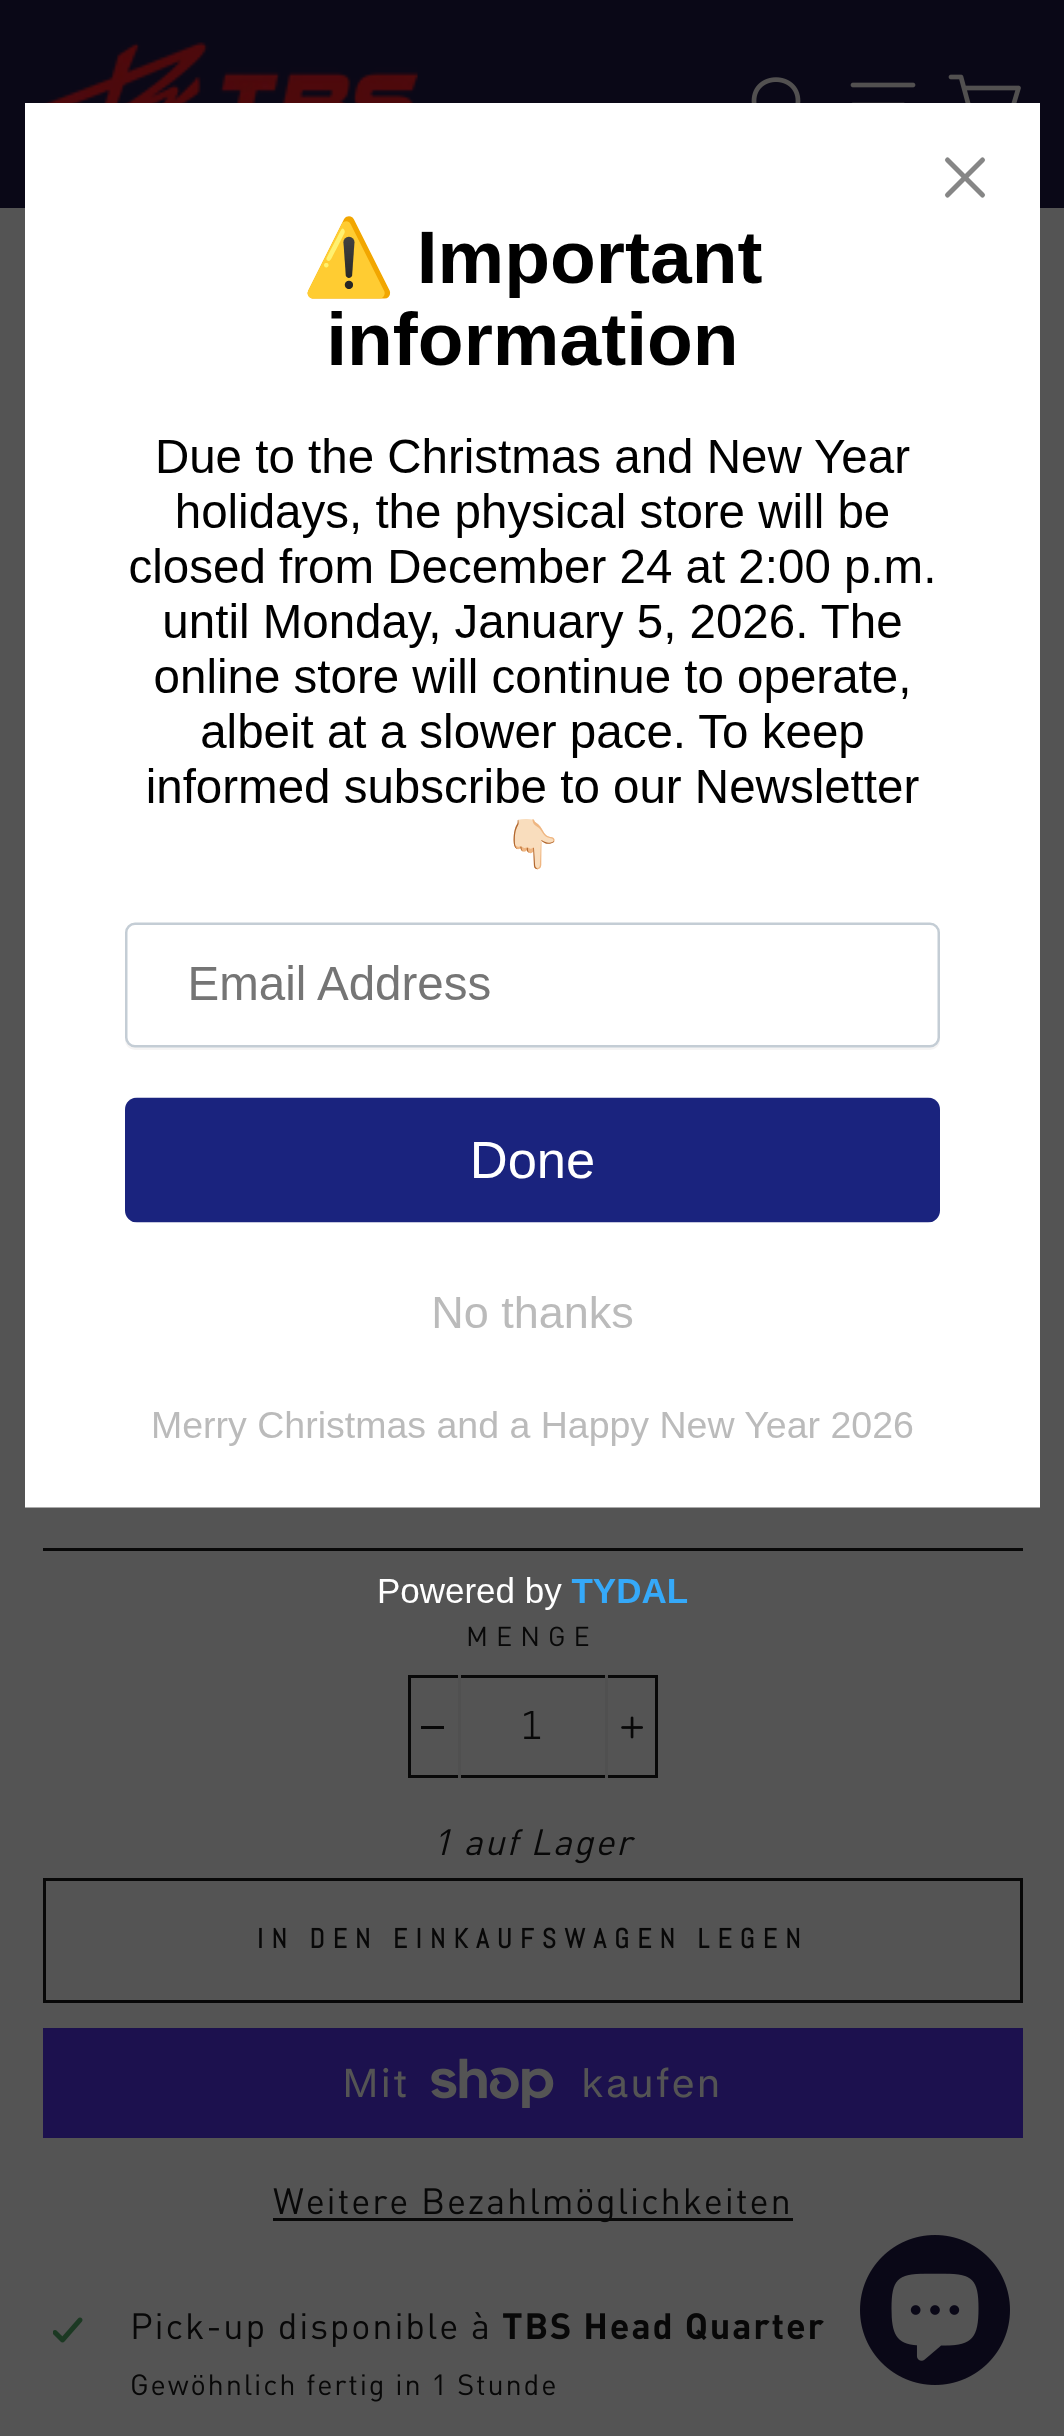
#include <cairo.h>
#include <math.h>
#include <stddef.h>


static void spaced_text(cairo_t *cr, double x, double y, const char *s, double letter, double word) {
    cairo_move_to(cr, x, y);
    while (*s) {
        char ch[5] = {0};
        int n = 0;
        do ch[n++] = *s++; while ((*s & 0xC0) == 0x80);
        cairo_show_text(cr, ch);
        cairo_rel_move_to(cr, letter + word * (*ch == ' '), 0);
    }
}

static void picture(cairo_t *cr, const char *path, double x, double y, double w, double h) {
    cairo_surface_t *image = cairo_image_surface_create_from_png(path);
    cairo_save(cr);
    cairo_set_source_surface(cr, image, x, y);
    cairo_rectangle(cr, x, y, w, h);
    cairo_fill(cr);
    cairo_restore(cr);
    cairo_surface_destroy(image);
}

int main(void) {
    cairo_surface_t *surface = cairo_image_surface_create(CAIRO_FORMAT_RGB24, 1064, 2436);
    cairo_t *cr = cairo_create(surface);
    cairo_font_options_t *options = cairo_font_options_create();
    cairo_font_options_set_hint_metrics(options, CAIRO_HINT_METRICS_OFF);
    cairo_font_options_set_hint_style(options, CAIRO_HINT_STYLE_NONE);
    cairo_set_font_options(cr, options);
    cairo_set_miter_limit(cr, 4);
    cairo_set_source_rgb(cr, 1, 1, 1);
    cairo_paint(cr);
    cairo_set_source_rgb(cr, 0.122, 0.098, 0.275);
    cairo_rectangle(cr, 0, 0, 1064, 208);
    cairo_fill(cr);
    picture(cr, "img2.png", 44, 42, 374, 61);
    cairo_new_path(cr);
    cairo_move_to(cr, 798, 101);
    cairo_curve_to(cr, 798, 129.5, 754, 129.5, 754, 101);
    cairo_curve_to(cr, 754, 72.5, 798, 72.5, 798, 101);
    cairo_close_path(cr);
    cairo_move_to(cr, 806, 131);
    cairo_line_to(cr, 791.5, 116.5);
    cairo_set_source_rgb(cr, 0.969, 0.957, 0.957);
    cairo_set_line_width(cr, 4.7);
    cairo_set_line_cap(cr, CAIRO_LINE_CAP_ROUND);
    cairo_set_line_join(cr, CAIRO_LINE_JOIN_ROUND);
    cairo_stroke(cr);
    cairo_new_path(cr);
    cairo_move_to(cr, 853, 85);
    cairo_line_to(cr, 913, 85);
    cairo_move_to(cr, 853, 105);
    cairo_line_to(cr, 903.5, 105);
    cairo_move_to(cr, 853, 125);
    cairo_line_to(cr, 913, 125);
    cairo_stroke(cr);
    cairo_new_path(cr);
    cairo_move_to(cr, 964, 88);
    cairo_line_to(cr, 1018.5, 88);
    cairo_line_to(cr, 1009.5, 118);
    cairo_line_to(cr, 972, 118);
    cairo_line_to(cr, 961, 77);
    cairo_line_to(cr, 951, 77);
    cairo_stroke(cr);
    cairo_set_source_rgb(cr, 0.094, 0.094, 0.094);
    cairo_rectangle(cr, 43, 1548, 980, 3);
    cairo_fill(cr);
    cairo_select_font_face(cr, "DIN", CAIRO_FONT_SLANT_NORMAL, CAIRO_FONT_WEIGHT_NORMAL);
    cairo_set_font_size(cr, 27);
    spaced_text(cr, 466, 1646, "MENGE", 8, 0);
    cairo_rectangle(cr, 409.5, 1676.5, 247, 100);
    cairo_set_line_width(cr, 3);
    cairo_set_line_cap(cr, CAIRO_LINE_CAP_BUTT);
    cairo_set_line_join(cr, CAIRO_LINE_JOIN_MITER);
    cairo_stroke(cr);
    cairo_set_source_rgb(cr, 0.949, 0.949, 0.949);
    cairo_rectangle(cr, 458, 1675, 3, 103);
    cairo_fill(cr);
    cairo_set_source_rgb(cr, 0.094, 0.094, 0.094);
    cairo_rectangle(cr, 421, 1726, 23, 3);
    cairo_fill(cr);
    cairo_select_font_face(cr, "Abel", CAIRO_FONT_SLANT_NORMAL, CAIRO_FONT_WEIGHT_NORMAL);
    cairo_set_font_size(cr, 40);
    spaced_text(cr, 521, 1739, "1", 2, 0);
    cairo_set_source_rgb(cr, 0.949, 0.949, 0.949);
    cairo_rectangle(cr, 605, 1675, 3, 103);
    cairo_fill(cr);
    picture(cr, "img3.png", 621, 1716, 22, 23);
    cairo_select_font_face(cr, "DIN", CAIRO_FONT_SLANT_ITALIC, CAIRO_FONT_WEIGHT_NORMAL);
    cairo_set_font_size(cr, 36.1);
    cairo_set_source_rgb(cr, 0.094, 0.094, 0.094);
    spaced_text(cr, 432, 1855, "1 auf Lager", 1.8, 0);
    cairo_rectangle(cr, 44.5, 1879.5, 977, 122);
    cairo_stroke(cr);
    cairo_select_font_face(cr, "Abel", CAIRO_FONT_SLANT_NORMAL, CAIRO_FONT_WEIGHT_BOLD);
    cairo_set_font_size(cr, 27.5);
    spaced_text(cr, 257, 1948, "IN DEN EINKAUFSWAGEN LEGEN", 8.25, 0);
    cairo_set_source_rgb(cr, 0.329, 0.2, 0.922);
    cairo_rectangle(cr, 43, 2028, 980, 110);
    cairo_fill(cr);
    cairo_select_font_face(cr, "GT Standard", CAIRO_FONT_SLANT_NORMAL, CAIRO_FONT_WEIGHT_NORMAL);
    cairo_set_font_size(cr, 40);
    cairo_set_source_rgb(cr, 1, 1, 1);
    spaced_text(cr, 342, 2097, "Mit", 1.8, 0);
    picture(cr, "img4.png", 431, 2058, 123, 50);
    spaced_text(cr, 581, 2097, "kaufen", 1.8, 0);
    cairo_set_source_rgb(cr, 0.094, 0.094, 0.094);
    cairo_rectangle(cr, 273, 2218, 520, 3);
    cairo_fill(cr);
    cairo_select_font_face(cr, "DIN", CAIRO_FONT_SLANT_NORMAL, CAIRO_FONT_WEIGHT_NORMAL);
    cairo_set_font_size(cr, 36.1);
    spaced_text(cr, 273, 2214, "Weitere Bezahlmöglichkeiten", 1.8, 0);
    picture(cr, "img5.png", 53, 2317, 30, 26);
    spaced_text(cr, 130, 2339, "Pick-up disponible à", 1.8, 0);
    cairo_select_font_face(cr, "DIN", CAIRO_FONT_SLANT_NORMAL, CAIRO_FONT_WEIGHT_BOLD);
    spaced_text(cr, 502, 2339, "TBS Head Quarter", 1.8, 0);
    cairo_select_font_face(cr, "DIN", CAIRO_FONT_SLANT_NORMAL, CAIRO_FONT_WEIGHT_NORMAL);
    cairo_set_font_size(cr, 28.9);
    spaced_text(cr, 130, 2395, "Gewöhnlich fertig in 1 Stunde", 1.8, 0);
    cairo_set_source_rgb(cr, 0.122, 0.098, 0.275);
    cairo_new_path(cr);
    cairo_arc(cr, 935, 2310, 75, 0, 2 * M_PI);
    cairo_fill(cr);
    picture(cr, "img6.png", 891, 2273, 88, 88);
    picture(cr, "img1.png", 0, 0, 1064, 2436);
    cairo_surface_write_to_png(surface, "page.png");
    cairo_font_options_destroy(options);
    cairo_destroy(cr);
    cairo_surface_destroy(surface);
    return 0;
}
